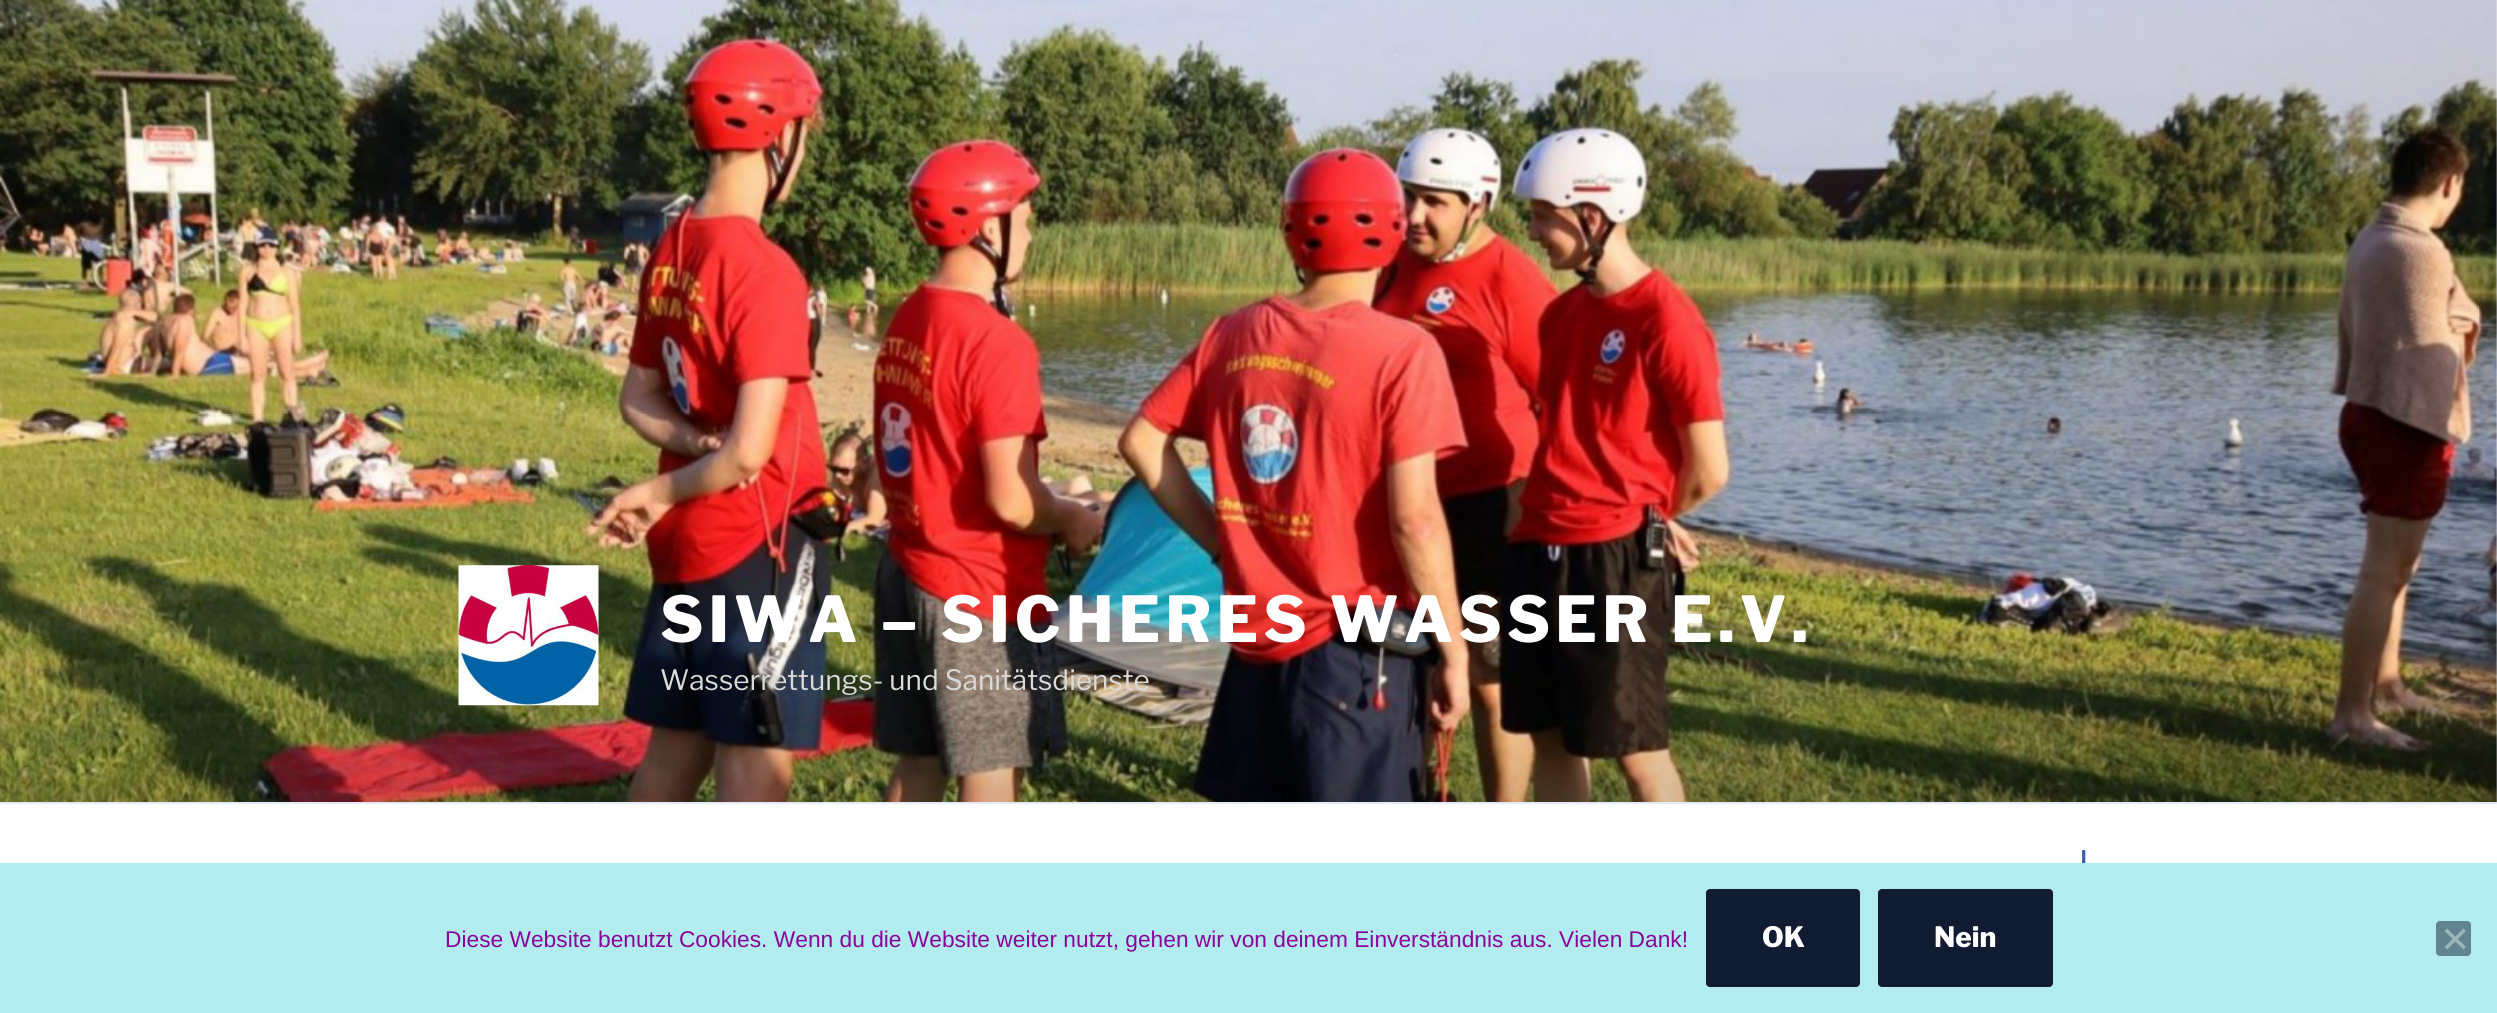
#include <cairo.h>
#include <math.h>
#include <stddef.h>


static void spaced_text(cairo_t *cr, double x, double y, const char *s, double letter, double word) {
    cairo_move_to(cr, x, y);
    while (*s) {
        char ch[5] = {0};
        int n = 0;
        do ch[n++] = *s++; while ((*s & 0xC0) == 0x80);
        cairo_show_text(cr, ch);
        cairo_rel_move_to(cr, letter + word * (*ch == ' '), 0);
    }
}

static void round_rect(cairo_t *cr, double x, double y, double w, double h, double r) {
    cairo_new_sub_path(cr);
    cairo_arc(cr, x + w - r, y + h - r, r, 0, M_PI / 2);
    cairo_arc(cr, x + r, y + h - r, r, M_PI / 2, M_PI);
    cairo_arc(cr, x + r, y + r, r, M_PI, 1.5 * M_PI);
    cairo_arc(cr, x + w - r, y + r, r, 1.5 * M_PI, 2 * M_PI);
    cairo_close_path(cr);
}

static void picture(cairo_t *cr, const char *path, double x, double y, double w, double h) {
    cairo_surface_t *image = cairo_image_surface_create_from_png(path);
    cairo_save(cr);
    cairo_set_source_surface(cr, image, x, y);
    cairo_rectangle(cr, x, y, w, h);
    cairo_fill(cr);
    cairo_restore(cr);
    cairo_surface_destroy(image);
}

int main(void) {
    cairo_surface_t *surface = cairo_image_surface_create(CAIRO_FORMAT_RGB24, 2497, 1013);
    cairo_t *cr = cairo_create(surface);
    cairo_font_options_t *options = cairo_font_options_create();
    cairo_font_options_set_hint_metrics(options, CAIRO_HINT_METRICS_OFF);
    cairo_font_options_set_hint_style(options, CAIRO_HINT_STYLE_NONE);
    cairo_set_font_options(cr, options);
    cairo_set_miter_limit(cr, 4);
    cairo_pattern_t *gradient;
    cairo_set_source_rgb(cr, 1, 1, 1);
    cairo_paint(cr);
    picture(cr, "img1.png", 0, 0, 2497, 802);
    gradient = cairo_pattern_create_linear(1249, 679, 1249, 1013);
    cairo_pattern_add_color_stop_rgba(gradient, 0, 0, 0, 0, 0);
    cairo_pattern_add_color_stop_rgba(gradient, 0.75, 0, 0, 0, 0.3);
    cairo_pattern_add_color_stop_rgba(gradient, 1, 0, 0, 0, 0.3);
    cairo_set_source(cr, gradient);
    cairo_pattern_destroy(gradient);
    cairo_rectangle(cr, 0, 697, 2497, 105);
    cairo_fill(cr);
    picture(cr, "img2.png", 458, 565, 141, 141);
    cairo_select_font_face(cr, "Libre Franklin Thin", CAIRO_FONT_SLANT_NORMAL, CAIRO_FONT_WEIGHT_NORMAL);
    cairo_set_font_size(cr, 63);
    cairo_set_source_rgb(cr, 1, 1, 1);
    spaced_text(cr, 660, 642, "SIWA – SICHERES WASSER E.V.", 5.05, 0);
    cairo_select_font_face(cr, "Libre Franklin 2 Thin", CAIRO_FONT_SLANT_NORMAL, CAIRO_FONT_WEIGHT_NORMAL);
    cairo_set_font_size(cr, 28);
    cairo_set_source_rgb(cr, 0.855, 0.855, 0.847);
    cairo_move_to(cr, 660, 690);
    cairo_show_text(cr, "Wasserrettungs- und Sanitätsdienste");
    cairo_set_source_rgb(cr, 0.894, 0.918, 0.965);
    cairo_rectangle(cr, 0, 802, 2497, 2);
    cairo_fill(cr);
    picture(cr, "img3.png", 2082, 850, 4, 13);
    cairo_set_source_rgb(cr, 0.702, 0.925, 0.937);
    cairo_rectangle(cr, 0, 863, 2497, 150);
    cairo_fill(cr);
    cairo_select_font_face(cr, "Liberation Sans", CAIRO_FONT_SLANT_NORMAL, CAIRO_FONT_WEIGHT_NORMAL);
    cairo_set_font_size(cr, 22.75);
    cairo_set_source_rgb(cr, 0.541, 0.027, 0.608);
    cairo_move_to(cr, 445, 947);
    cairo_show_text(cr, "Diese Website benutzt Cookies. Wenn du die Website weiter nutzt, gehen wir von deinem Einverständnis aus. Vielen Dank!");
    cairo_set_source_rgb(cr, 0.067, 0.106, 0.196);
    round_rect(cr, 1706, 889, 154, 98, 4);
    cairo_fill(cr);
    cairo_select_font_face(cr, "Libre Franklin Thin", CAIRO_FONT_SLANT_NORMAL, CAIRO_FONT_WEIGHT_NORMAL);
    cairo_set_font_size(cr, 28);
    cairo_set_source_rgb(cr, 1, 1, 1);
    cairo_move_to(cr, 1762, 947);
    cairo_show_text(cr, "OK");
    cairo_set_source_rgb(cr, 0.067, 0.106, 0.196);
    round_rect(cr, 1878, 889, 175, 98, 4);
    cairo_fill(cr);
    cairo_set_source_rgb(cr, 1, 1, 1);
    cairo_move_to(cr, 1934, 947);
    cairo_show_text(cr, "Nein");
    cairo_set_source_rgb(cr, 0.384, 0.518, 0.569);
    round_rect(cr, 2436, 921, 35, 35, 4);
    cairo_fill(cr);
    cairo_set_source_rgb(cr, 0.604, 0.714, 0.722);
    cairo_new_path(cr);
    cairo_move_to(cr, 2463.5, 928.5);
    cairo_line_to(cr, 2466, 931);
    cairo_line_to(cr, 2447, 949.5);
    cairo_line_to(cr, 2444.5, 947);
    cairo_close_path(cr);
    cairo_fill(cr);
    cairo_new_path(cr);
    cairo_move_to(cr, 2444.5, 931);
    cairo_line_to(cr, 2447, 928.5);
    cairo_line_to(cr, 2466, 947);
    cairo_line_to(cr, 2463.5, 949.5);
    cairo_close_path(cr);
    cairo_fill(cr);
    cairo_surface_write_to_png(surface, "page.png");
    cairo_font_options_destroy(options);
    cairo_destroy(cr);
    cairo_surface_destroy(surface);
    return 0;
}
